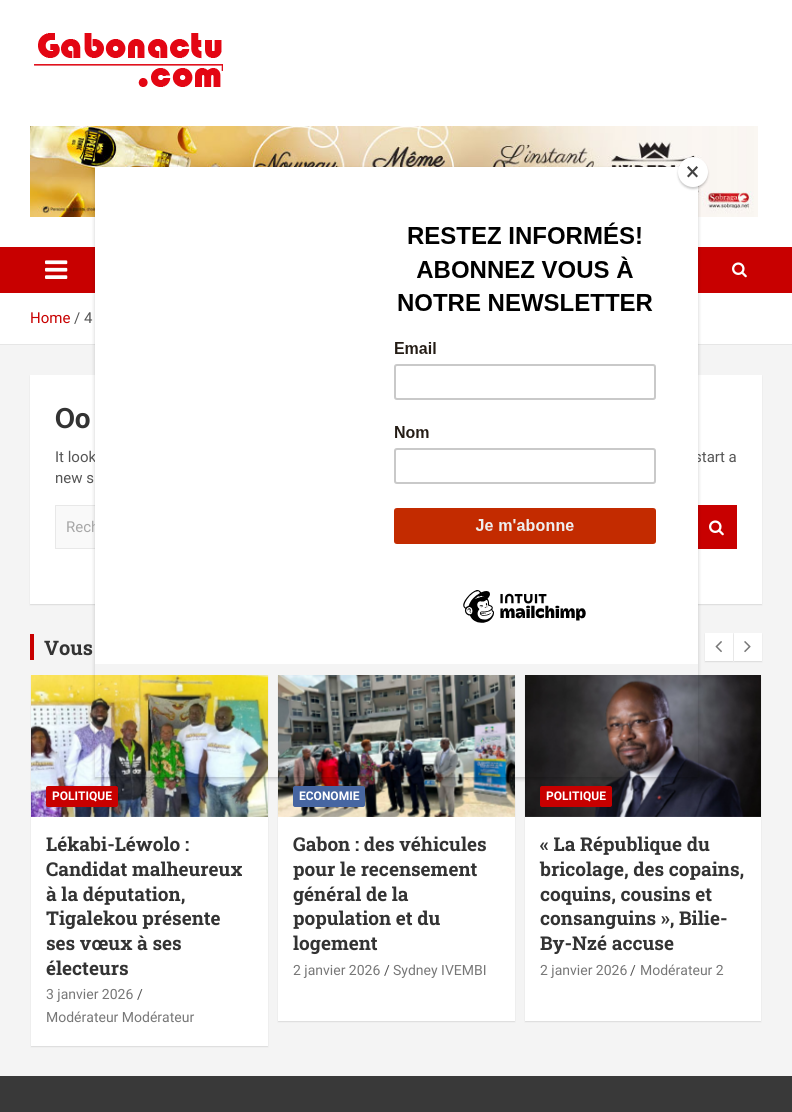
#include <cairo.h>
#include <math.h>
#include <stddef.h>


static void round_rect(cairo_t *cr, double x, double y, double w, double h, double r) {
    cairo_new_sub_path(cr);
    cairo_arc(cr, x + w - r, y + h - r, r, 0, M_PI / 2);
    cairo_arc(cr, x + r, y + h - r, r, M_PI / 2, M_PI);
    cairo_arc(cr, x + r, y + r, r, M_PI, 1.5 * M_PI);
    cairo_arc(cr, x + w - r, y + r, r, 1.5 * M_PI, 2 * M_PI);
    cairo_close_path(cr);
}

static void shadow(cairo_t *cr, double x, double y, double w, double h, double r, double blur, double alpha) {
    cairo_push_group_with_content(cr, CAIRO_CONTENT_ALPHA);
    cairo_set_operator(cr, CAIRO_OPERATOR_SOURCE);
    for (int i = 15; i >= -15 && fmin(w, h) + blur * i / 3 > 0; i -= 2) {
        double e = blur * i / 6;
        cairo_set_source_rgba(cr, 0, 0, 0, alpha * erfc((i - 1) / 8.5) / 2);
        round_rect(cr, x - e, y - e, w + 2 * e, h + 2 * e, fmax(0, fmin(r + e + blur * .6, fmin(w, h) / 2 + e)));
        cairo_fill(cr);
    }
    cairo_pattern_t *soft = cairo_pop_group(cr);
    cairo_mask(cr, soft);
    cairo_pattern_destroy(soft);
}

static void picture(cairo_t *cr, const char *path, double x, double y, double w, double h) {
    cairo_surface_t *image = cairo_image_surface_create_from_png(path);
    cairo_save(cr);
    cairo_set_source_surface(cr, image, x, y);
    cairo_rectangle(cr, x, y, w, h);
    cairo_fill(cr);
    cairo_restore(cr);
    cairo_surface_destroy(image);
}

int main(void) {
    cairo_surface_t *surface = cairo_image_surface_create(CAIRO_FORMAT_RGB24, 792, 1112);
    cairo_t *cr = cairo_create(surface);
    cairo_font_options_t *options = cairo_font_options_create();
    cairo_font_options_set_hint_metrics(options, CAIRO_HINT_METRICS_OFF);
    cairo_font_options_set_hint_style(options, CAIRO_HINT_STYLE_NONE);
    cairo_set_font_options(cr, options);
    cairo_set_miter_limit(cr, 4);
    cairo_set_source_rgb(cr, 0.957, 0.957, 0.957);
    cairo_paint(cr);
    cairo_set_source_rgb(cr, 1, 1, 1);
    cairo_rectangle(cr, 0, 0, 792, 247);
    cairo_fill(cr);
    picture(cr, "img3.png", 30, 126, 728, 91);
    cairo_set_source_rgb(cr, 0.784, 0, 0);
    cairo_rectangle(cr, 0, 247, 792, 46);
    cairo_fill(cr);
    cairo_set_source_rgb(cr, 1, 1, 1);
    cairo_rectangle(cr, 0, 293, 792, 51);
    cairo_fill(cr);
    cairo_set_source_rgb(cr, 0.902, 0.902, 0.902);
    cairo_rectangle(cr, 0, 344, 792, 1);
    cairo_fill(cr);
    cairo_set_source_rgb(cr, 0, 0, 0);
    shadow(cr, 30, 376, 732, 229, 0, 0.5, 0.1);
    cairo_set_source_rgb(cr, 1, 1, 1);
    cairo_rectangle(cr, 30, 375, 732, 229);
    cairo_fill(cr);
    cairo_set_source_rgb(cr, 0.976, 0.976, 0.976);
    cairo_rectangle(cr, 56, 506, 39, 42);
    cairo_fill(cr);
    cairo_set_source_rgb(cr, 0.91, 0.91, 0.91);
    cairo_new_path(cr);
    cairo_move_to(cr, 55, 505);
    cairo_line_to(cr, 697, 505);
    cairo_line_to(cr, 697, 506);
    cairo_line_to(cr, 56, 506);
    cairo_close_path(cr);
    cairo_fill(cr);
    cairo_new_path(cr);
    cairo_move_to(cr, 697, 549);
    cairo_line_to(cr, 55, 549);
    cairo_line_to(cr, 56, 548);
    cairo_line_to(cr, 697, 548);
    cairo_close_path(cr);
    cairo_fill(cr);
    cairo_set_source_rgb(cr, 0.784, 0, 0);
    cairo_rectangle(cr, 698, 505, 39, 44);
    cairo_fill(cr);
    cairo_set_source_rgb(cr, 0, 0, 0);
    shadow(cr, 31, 676, 237, 371, 0, 0.5, 0.1);
    cairo_set_source_rgb(cr, 1, 1, 1);
    cairo_rectangle(cr, 31, 816, 237, 230);
    cairo_fill(cr);
    picture(cr, "img8.png", 31, 675, 237, 142);
    cairo_set_source_rgb(cr, 0, 0, 0);
    shadow(cr, 278, 676, 237, 346, 0, 0.5, 0.1);
    cairo_set_source_rgb(cr, 1, 1, 1);
    cairo_rectangle(cr, 278, 816, 237, 205);
    cairo_fill(cr);
    picture(cr, "img9.png", 278, 675, 237, 142);
    cairo_set_source_rgb(cr, 0, 0, 0);
    shadow(cr, 525, 676, 236, 346, 0, 0.5, 0.1);
    cairo_set_source_rgb(cr, 1, 1, 1);
    cairo_rectangle(cr, 525, 816, 236, 205);
    cairo_fill(cr);
    picture(cr, "img10.png", 525, 675, 236, 142);
    cairo_save(cr);
    cairo_set_fill_rule(cr, CAIRO_FILL_RULE_EVEN_ODD);
    cairo_new_path(cr);
    cairo_move_to(cr, 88, 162);
    cairo_line_to(cr, 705, 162);
    cairo_line_to(cr, 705, 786);
    cairo_line_to(cr, 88, 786);
    cairo_close_path(cr);
    cairo_move_to(cr, 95, 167);
    cairo_line_to(cr, 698, 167);
    cairo_line_to(cr, 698, 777);
    cairo_line_to(cr, 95, 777);
    cairo_close_path(cr);
    cairo_clip(cr);
    cairo_set_source_rgb(cr, 0, 0, 0);
    shadow(cr, 95, 169, 603, 610, 0, 2, 0.2);
    cairo_restore(cr);
    cairo_select_font_face(cr, "Roboto", CAIRO_FONT_SLANT_NORMAL, CAIRO_FONT_WEIGHT_NORMAL);
    cairo_set_font_size(cr, 15);
    cairo_set_source_rgb(cr, 0.333, 0.333, 0.333);
    cairo_move_to(cr, 55, 462);
    cairo_show_text(cr, "It look");
    cairo_move_to(cr, 694, 462);
    cairo_show_text(cr, "start a");
    cairo_set_source_rgb(cr, 0.655, 0.655, 0.655);
    cairo_move_to(cr, 66, 532);
    cairo_show_text(cr, "Rech");
    picture(cr, "img1.png", 95, 167, 603, 497);
    cairo_set_source_rgb(cr, 0, 0, 0);
    shadow(cr, 678, 159, 30, 30, 15, 1, 0.2);
    cairo_set_source_rgb(cr, 1, 1, 1);
    cairo_arc(cr, 693, 172, 15, 0, 2 * M_PI);
    cairo_fill(cr);
    cairo_set_source_rgb(cr, 0.255, 0.255, 0.255);
    cairo_new_path(cr);
    cairo_move_to(cr, 696.5, 166);
    cairo_line_to(cr, 698, 167.5);
    cairo_line_to(cr, 688.5, 177.5);
    cairo_line_to(cr, 687, 176);
    cairo_close_path(cr);
    cairo_fill(cr);
    cairo_new_path(cr);
    cairo_move_to(cr, 687, 167.5);
    cairo_line_to(cr, 688.5, 166);
    cairo_line_to(cr, 698, 176);
    cairo_line_to(cr, 696.5, 177.5);
    cairo_close_path(cr);
    cairo_fill(cr);
    picture(cr, "img2.png", 34, 33, 189, 54);
    picture(cr, "img4.png", 45, 260, 23, 19);
    picture(cr, "img5.png", 732, 262, 15, 16);
    cairo_set_source_rgb(cr, 0.784, 0, 0);
    cairo_move_to(cr, 30, 323);
    cairo_show_text(cr, "Home");
    cairo_set_source_rgb(cr, 0.333, 0.333, 0.333);
    cairo_move_to(cr, 74, 323);
    cairo_show_text(cr, "/ 4");
    cairo_select_font_face(cr, "Roboto Slab", CAIRO_FONT_SLANT_NORMAL, CAIRO_FONT_WEIGHT_BOLD);
    cairo_set_font_size(cr, 28);
    cairo_set_source_rgb(cr, 0.2, 0.2, 0.2);
    cairo_move_to(cr, 55, 428);
    cairo_show_text(cr, "Oo");
    cairo_select_font_face(cr, "Roboto", CAIRO_FONT_SLANT_NORMAL, CAIRO_FONT_WEIGHT_NORMAL);
    cairo_set_font_size(cr, 15);
    cairo_set_source_rgb(cr, 0.333, 0.333, 0.333);
    cairo_move_to(cr, 55, 483);
    cairo_show_text(cr, "new s");
    cairo_set_source_rgba(cr, 0, 0, 0, 0.09);
    cairo_new_path(cr);
    cairo_move_to(cr, 55, 549);
    cairo_line_to(cr, 55, 505);
    cairo_line_to(cr, 56, 506);
    cairo_line_to(cr, 56, 548);
    cairo_close_path(cr);
    cairo_fill(cr);
    picture(cr, "img5.png", 709, 520, 15, 16);
    cairo_set_source_rgb(cr, 0.784, 0, 0);
    cairo_rectangle(cr, 30, 634, 4, 26);
    cairo_fill(cr);
    cairo_select_font_face(cr, "Roboto Slab", CAIRO_FONT_SLANT_NORMAL, CAIRO_FONT_WEIGHT_BOLD);
    cairo_set_font_size(cr, 20);
    cairo_set_source_rgb(cr, 0.2, 0.2, 0.2);
    cairo_move_to(cr, 44, 655);
    cairo_show_text(cr, "Vous");
    cairo_set_source_rgb(cr, 0, 0, 0);
    shadow(cr, 705, 634, 28, 28, 0, 0.5, 0.1);
    cairo_set_source_rgb(cr, 1, 1, 1);
    cairo_rectangle(cr, 705, 633, 28, 28);
    cairo_fill(cr);
    picture(cr, "img6.png", 715, 641, 7, 12);
    cairo_set_source_rgb(cr, 0, 0, 0);
    shadow(cr, 734, 634, 28, 28, 0, 0.5, 0.1);
    cairo_set_source_rgb(cr, 1, 1, 1);
    cairo_rectangle(cr, 734, 633, 28, 28);
    cairo_fill(cr);
    picture(cr, "img7.png", 744, 641, 7, 12);
    cairo_set_source_rgb(cr, 0.784, 0, 0);
    round_rect(cr, 46, 786, 72, 21, 2);
    cairo_fill(cr);
    cairo_select_font_face(cr, "Roboto", CAIRO_FONT_SLANT_NORMAL, CAIRO_FONT_WEIGHT_BOLD);
    cairo_set_font_size(cr, 12);
    cairo_set_source_rgb(cr, 1, 1, 1);
    cairo_move_to(cr, 52, 800);
    cairo_show_text(cr, "POLITIQUE");
    cairo_select_font_face(cr, "Roboto Slab", CAIRO_FONT_SLANT_NORMAL, CAIRO_FONT_WEIGHT_BOLD);
    cairo_set_font_size(cr, 19);
    cairo_set_source_rgb(cr, 0.2, 0.2, 0.2);
    cairo_move_to(cr, 46, 851);
    cairo_show_text(cr, "Lékabi-Léwolo :");
    cairo_move_to(cr, 46, 876);
    cairo_show_text(cr, "Candidat malheureux");
    cairo_move_to(cr, 46, 901);
    cairo_show_text(cr, "à la députation,");
    cairo_move_to(cr, 46, 925);
    cairo_show_text(cr, "Tigalekou présente");
    cairo_move_to(cr, 46, 950);
    cairo_show_text(cr, "ses vœux à ses");
    cairo_move_to(cr, 46, 975);
    cairo_show_text(cr, "électeurs");
    cairo_select_font_face(cr, "Roboto", CAIRO_FONT_SLANT_NORMAL, CAIRO_FONT_WEIGHT_NORMAL);
    cairo_set_font_size(cr, 14);
    cairo_set_source_rgb(cr, 0.467, 0.467, 0.467);
    cairo_move_to(cr, 46, 999);
    cairo_show_text(cr, "3 janvier 2026");
    cairo_set_source_rgb(cr, 0.333, 0.333, 0.333);
    cairo_move_to(cr, 137, 999);
    cairo_show_text(cr, "/");
    cairo_set_source_rgb(cr, 0.467, 0.467, 0.467);
    cairo_move_to(cr, 46, 1022);
    cairo_show_text(cr, "Modérateur Modérateur");
    cairo_set_source_rgb(cr, 0.278, 0.4, 0.631);
    round_rect(cr, 293, 786, 72, 21, 2);
    cairo_fill(cr);
    cairo_select_font_face(cr, "Roboto", CAIRO_FONT_SLANT_NORMAL, CAIRO_FONT_WEIGHT_BOLD);
    cairo_set_font_size(cr, 12);
    cairo_set_source_rgb(cr, 1, 1, 1);
    cairo_move_to(cr, 299, 800);
    cairo_show_text(cr, "ECONOMIE");
    cairo_select_font_face(cr, "Roboto Slab", CAIRO_FONT_SLANT_NORMAL, CAIRO_FONT_WEIGHT_BOLD);
    cairo_set_font_size(cr, 19);
    cairo_set_source_rgb(cr, 0.2, 0.2, 0.2);
    cairo_move_to(cr, 293, 851);
    cairo_show_text(cr, "Gabon : des véhicules");
    cairo_move_to(cr, 293, 876);
    cairo_show_text(cr, "pour le recensement");
    cairo_move_to(cr, 293, 901);
    cairo_show_text(cr, "général de la");
    cairo_move_to(cr, 293, 925);
    cairo_show_text(cr, "population et du");
    cairo_move_to(cr, 293, 950);
    cairo_show_text(cr, "logement");
    cairo_select_font_face(cr, "Roboto", CAIRO_FONT_SLANT_NORMAL, CAIRO_FONT_WEIGHT_NORMAL);
    cairo_set_font_size(cr, 14);
    cairo_set_source_rgb(cr, 0.467, 0.467, 0.467);
    cairo_move_to(cr, 293, 975);
    cairo_show_text(cr, "2 janvier 2026");
    cairo_set_source_rgb(cr, 0.333, 0.333, 0.333);
    cairo_move_to(cr, 384, 975);
    cairo_show_text(cr, "/");
    cairo_set_source_rgb(cr, 0.467, 0.467, 0.467);
    cairo_move_to(cr, 393, 975);
    cairo_show_text(cr, "Sydney IVEMBI");
    cairo_set_source_rgb(cr, 0.784, 0, 0);
    round_rect(cr, 540, 786, 72, 21, 2);
    cairo_fill(cr);
    cairo_select_font_face(cr, "Roboto", CAIRO_FONT_SLANT_NORMAL, CAIRO_FONT_WEIGHT_BOLD);
    cairo_set_font_size(cr, 12);
    cairo_set_source_rgb(cr, 1, 1, 1);
    cairo_move_to(cr, 546, 800);
    cairo_show_text(cr, "POLITIQUE");
    cairo_select_font_face(cr, "Roboto Slab", CAIRO_FONT_SLANT_NORMAL, CAIRO_FONT_WEIGHT_BOLD);
    cairo_set_font_size(cr, 19);
    cairo_set_source_rgb(cr, 0.2, 0.2, 0.2);
    cairo_move_to(cr, 540, 851);
    cairo_show_text(cr, "« La République du");
    cairo_move_to(cr, 540, 876);
    cairo_show_text(cr, "bricolage, des copains,");
    cairo_move_to(cr, 540, 901);
    cairo_show_text(cr, "coquins, cousins et");
    cairo_move_to(cr, 540, 925);
    cairo_show_text(cr, "consanguins », Bilie-");
    cairo_move_to(cr, 540, 950);
    cairo_show_text(cr, "By-Nzé accuse");
    cairo_select_font_face(cr, "Roboto", CAIRO_FONT_SLANT_NORMAL, CAIRO_FONT_WEIGHT_NORMAL);
    cairo_set_font_size(cr, 14);
    cairo_set_source_rgb(cr, 0.467, 0.467, 0.467);
    cairo_move_to(cr, 540, 975);
    cairo_show_text(cr, "2 janvier 2026");
    cairo_set_source_rgb(cr, 0.333, 0.333, 0.333);
    cairo_move_to(cr, 630, 975);
    cairo_show_text(cr, "/");
    cairo_set_source_rgb(cr, 0.467, 0.467, 0.467);
    cairo_move_to(cr, 640, 975);
    cairo_show_text(cr, "Modérateur 2");
    cairo_set_source_rgb(cr, 0.224, 0.224, 0.224);
    cairo_rectangle(cr, 0, 1076, 792, 36);
    cairo_fill(cr);
    cairo_surface_write_to_png(surface, "page.png");
    cairo_font_options_destroy(options);
    cairo_destroy(cr);
    cairo_surface_destroy(surface);
    return 0;
}
